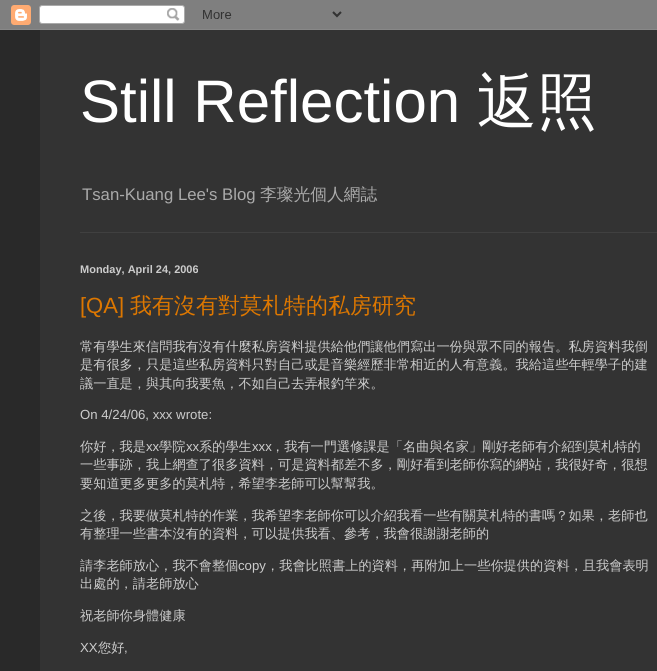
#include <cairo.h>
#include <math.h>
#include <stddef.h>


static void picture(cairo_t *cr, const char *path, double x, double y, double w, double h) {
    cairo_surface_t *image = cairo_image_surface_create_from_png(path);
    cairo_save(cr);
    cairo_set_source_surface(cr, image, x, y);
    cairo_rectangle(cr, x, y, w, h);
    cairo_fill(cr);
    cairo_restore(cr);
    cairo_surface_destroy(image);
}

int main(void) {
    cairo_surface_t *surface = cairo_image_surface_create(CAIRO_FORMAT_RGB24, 657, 671);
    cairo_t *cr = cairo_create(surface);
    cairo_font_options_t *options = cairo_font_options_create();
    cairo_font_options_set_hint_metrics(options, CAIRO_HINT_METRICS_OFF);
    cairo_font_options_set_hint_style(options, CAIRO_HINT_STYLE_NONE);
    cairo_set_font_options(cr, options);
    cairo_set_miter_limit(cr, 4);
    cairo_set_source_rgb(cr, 0.161, 0.161, 0.161);
    cairo_paint(cr);
    picture(cr, "img1.png", 0, 0, 657, 30);
    cairo_set_source_rgb(cr, 0.2, 0.2, 0.2);
    cairo_rectangle(cr, 40, 30, 617, 641);
    cairo_fill(cr);
    cairo_select_font_face(cr, "Liberation Sans", CAIRO_FONT_SLANT_NORMAL, CAIRO_FONT_WEIGHT_NORMAL);
    cairo_set_font_size(cr, 60);
    cairo_set_source_rgb(cr, 1, 1, 1);
    cairo_move_to(cr, 80, 122);
    cairo_show_text(cr, "Still Reflection");
    cairo_select_font_face(cr, "WenQuanYi Zen Hei Medium", CAIRO_FONT_SLANT_NORMAL, CAIRO_FONT_WEIGHT_NORMAL);
    cairo_move_to(cr, 477, 122);
    cairo_show_text(cr, "返照");
    cairo_select_font_face(cr, "Liberation Sans", CAIRO_FONT_SLANT_NORMAL, CAIRO_FONT_WEIGHT_NORMAL);
    cairo_set_font_size(cr, 16.75);
    cairo_set_source_rgb(cr, 0.667, 0.667, 0.667);
    cairo_move_to(cr, 82, 200);
    cairo_show_text(cr, "Tsan-Kuang Lee's Blog");
    cairo_select_font_face(cr, "WenQuanYi Zen Hei Medium", CAIRO_FONT_SLANT_NORMAL, CAIRO_FONT_WEIGHT_NORMAL);
    cairo_move_to(cr, 260, 200);
    cairo_show_text(cr, "李璨光個人網誌");
    cairo_set_source_rgb(cr, 0.251, 0.251, 0.251);
    cairo_rectangle(cr, 80, 232, 577, 1);
    cairo_fill(cr);
    cairo_select_font_face(cr, "Liberation Sans", CAIRO_FONT_SLANT_NORMAL, CAIRO_FONT_WEIGHT_BOLD);
    cairo_set_font_size(cr, 11);
    cairo_set_source_rgb(cr, 0.8, 0.8, 0.8);
    cairo_move_to(cr, 80, 273);
    cairo_show_text(cr, "Monday, April 24, 2006");
    cairo_select_font_face(cr, "Liberation Sans", CAIRO_FONT_SLANT_NORMAL, CAIRO_FONT_WEIGHT_NORMAL);
    cairo_set_font_size(cr, 22);
    cairo_set_source_rgb(cr, 0.867, 0.467, 0);
    cairo_move_to(cr, 80, 313);
    cairo_show_text(cr, "[QA]");
    cairo_select_font_face(cr, "WenQuanYi Zen Hei Medium", CAIRO_FONT_SLANT_NORMAL, CAIRO_FONT_WEIGHT_NORMAL);
    cairo_move_to(cr, 130, 313);
    cairo_show_text(cr, "我有沒有對莫札特的私房研究");
    cairo_set_font_size(cr, 13.2);
    cairo_set_source_rgb(cr, 0.8, 0.8, 0.8);
    cairo_move_to(cr, 80, 351);
    cairo_show_text(cr, "常有學生來信問我有沒有什麼私房資料提供給他們讓他們寫出一份與眾不同的報告。私房資料我倒");
    cairo_move_to(cr, 80, 369);
    cairo_show_text(cr, "是有很多，只是這些私房資料只對自己或是音樂經歷非常相近的人有意義。我給這些年輕學子的建");
    cairo_move_to(cr, 80, 388);
    cairo_show_text(cr, "議一直是，與其向我要魚，不如自己去弄根釣竿來。");
    cairo_select_font_face(cr, "Liberation Sans", CAIRO_FONT_SLANT_NORMAL, CAIRO_FONT_WEIGHT_NORMAL);
    cairo_move_to(cr, 80, 419);
    cairo_show_text(cr, "On 4/24/06, xxx wrote:");
    cairo_select_font_face(cr, "WenQuanYi Zen Hei Medium", CAIRO_FONT_SLANT_NORMAL, CAIRO_FONT_WEIGHT_NORMAL);
    cairo_move_to(cr, 80, 451);
    cairo_show_text(cr, "你好，我是");
    cairo_select_font_face(cr, "Liberation Sans", CAIRO_FONT_SLANT_NORMAL, CAIRO_FONT_WEIGHT_NORMAL);
    cairo_move_to(cr, 146, 451);
    cairo_show_text(cr, "xx");
    cairo_select_font_face(cr, "WenQuanYi Zen Hei Medium", CAIRO_FONT_SLANT_NORMAL, CAIRO_FONT_WEIGHT_NORMAL);
    cairo_move_to(cr, 159, 451);
    cairo_show_text(cr, "學院");
    cairo_select_font_face(cr, "Liberation Sans", CAIRO_FONT_SLANT_NORMAL, CAIRO_FONT_WEIGHT_NORMAL);
    cairo_move_to(cr, 186, 451);
    cairo_show_text(cr, "xx");
    cairo_select_font_face(cr, "WenQuanYi Zen Hei Medium", CAIRO_FONT_SLANT_NORMAL, CAIRO_FONT_WEIGHT_NORMAL);
    cairo_move_to(cr, 199, 451);
    cairo_show_text(cr, "系的學生");
    cairo_select_font_face(cr, "Liberation Sans", CAIRO_FONT_SLANT_NORMAL, CAIRO_FONT_WEIGHT_NORMAL);
    cairo_move_to(cr, 252, 451);
    cairo_show_text(cr, "xxx");
    cairo_select_font_face(cr, "WenQuanYi Zen Hei Medium", CAIRO_FONT_SLANT_NORMAL, CAIRO_FONT_WEIGHT_NORMAL);
    cairo_move_to(cr, 271, 451);
    cairo_show_text(cr, "，我有一門選修課是「名曲與名家」剛好老師有介紹到莫札特的");
    cairo_move_to(cr, 80, 469);
    cairo_show_text(cr, "一些事跡，我上網查了很多資料，可是資料都差不多，剛好看到老師你寫的網站，我很好奇，很想");
    cairo_move_to(cr, 80, 488);
    cairo_show_text(cr, "要知道更多更多的莫札特，希望李老師可以幫幫我。");
    cairo_move_to(cr, 80, 520);
    cairo_show_text(cr, "之後，我要做莫札特的作業，我希望李老師你可以介紹我看一些有關莫札特的書嗎？如果，老師也");
    cairo_move_to(cr, 80, 538);
    cairo_show_text(cr, "有整理一些書本沒有的資料，可以提供我看、參考，我會很謝謝老師的");
    cairo_move_to(cr, 80, 570);
    cairo_show_text(cr, "請李老師放心，我不會整個");
    cairo_select_font_face(cr, "Liberation Sans", CAIRO_FONT_SLANT_NORMAL, CAIRO_FONT_WEIGHT_NORMAL);
    cairo_move_to(cr, 238, 570);
    cairo_show_text(cr, "copy");
    cairo_select_font_face(cr, "WenQuanYi Zen Hei Medium", CAIRO_FONT_SLANT_NORMAL, CAIRO_FONT_WEIGHT_NORMAL);
    cairo_move_to(cr, 266, 570);
    cairo_show_text(cr, "，我會比照書上的資料，再附加上一些你提供的資料，且我會表明");
    cairo_move_to(cr, 80, 588);
    cairo_show_text(cr, "出處的，請老師放心");
    cairo_move_to(cr, 80, 620);
    cairo_show_text(cr, "祝老師你身體健康");
    cairo_select_font_face(cr, "Liberation Sans", CAIRO_FONT_SLANT_NORMAL, CAIRO_FONT_WEIGHT_NORMAL);
    cairo_move_to(cr, 80, 652);
    cairo_show_text(cr, "XX");
    cairo_select_font_face(cr, "WenQuanYi Zen Hei Medium", CAIRO_FONT_SLANT_NORMAL, CAIRO_FONT_WEIGHT_NORMAL);
    cairo_move_to(cr, 98, 652);
    cairo_show_text(cr, "您好");
    cairo_select_font_face(cr, "Liberation Sans", CAIRO_FONT_SLANT_NORMAL, CAIRO_FONT_WEIGHT_NORMAL);
    cairo_move_to(cr, 124, 652);
    cairo_show_text(cr, ",");
    cairo_surface_write_to_png(surface, "page.png");
    cairo_font_options_destroy(options);
    cairo_destroy(cr);
    cairo_surface_destroy(surface);
    return 0;
}
